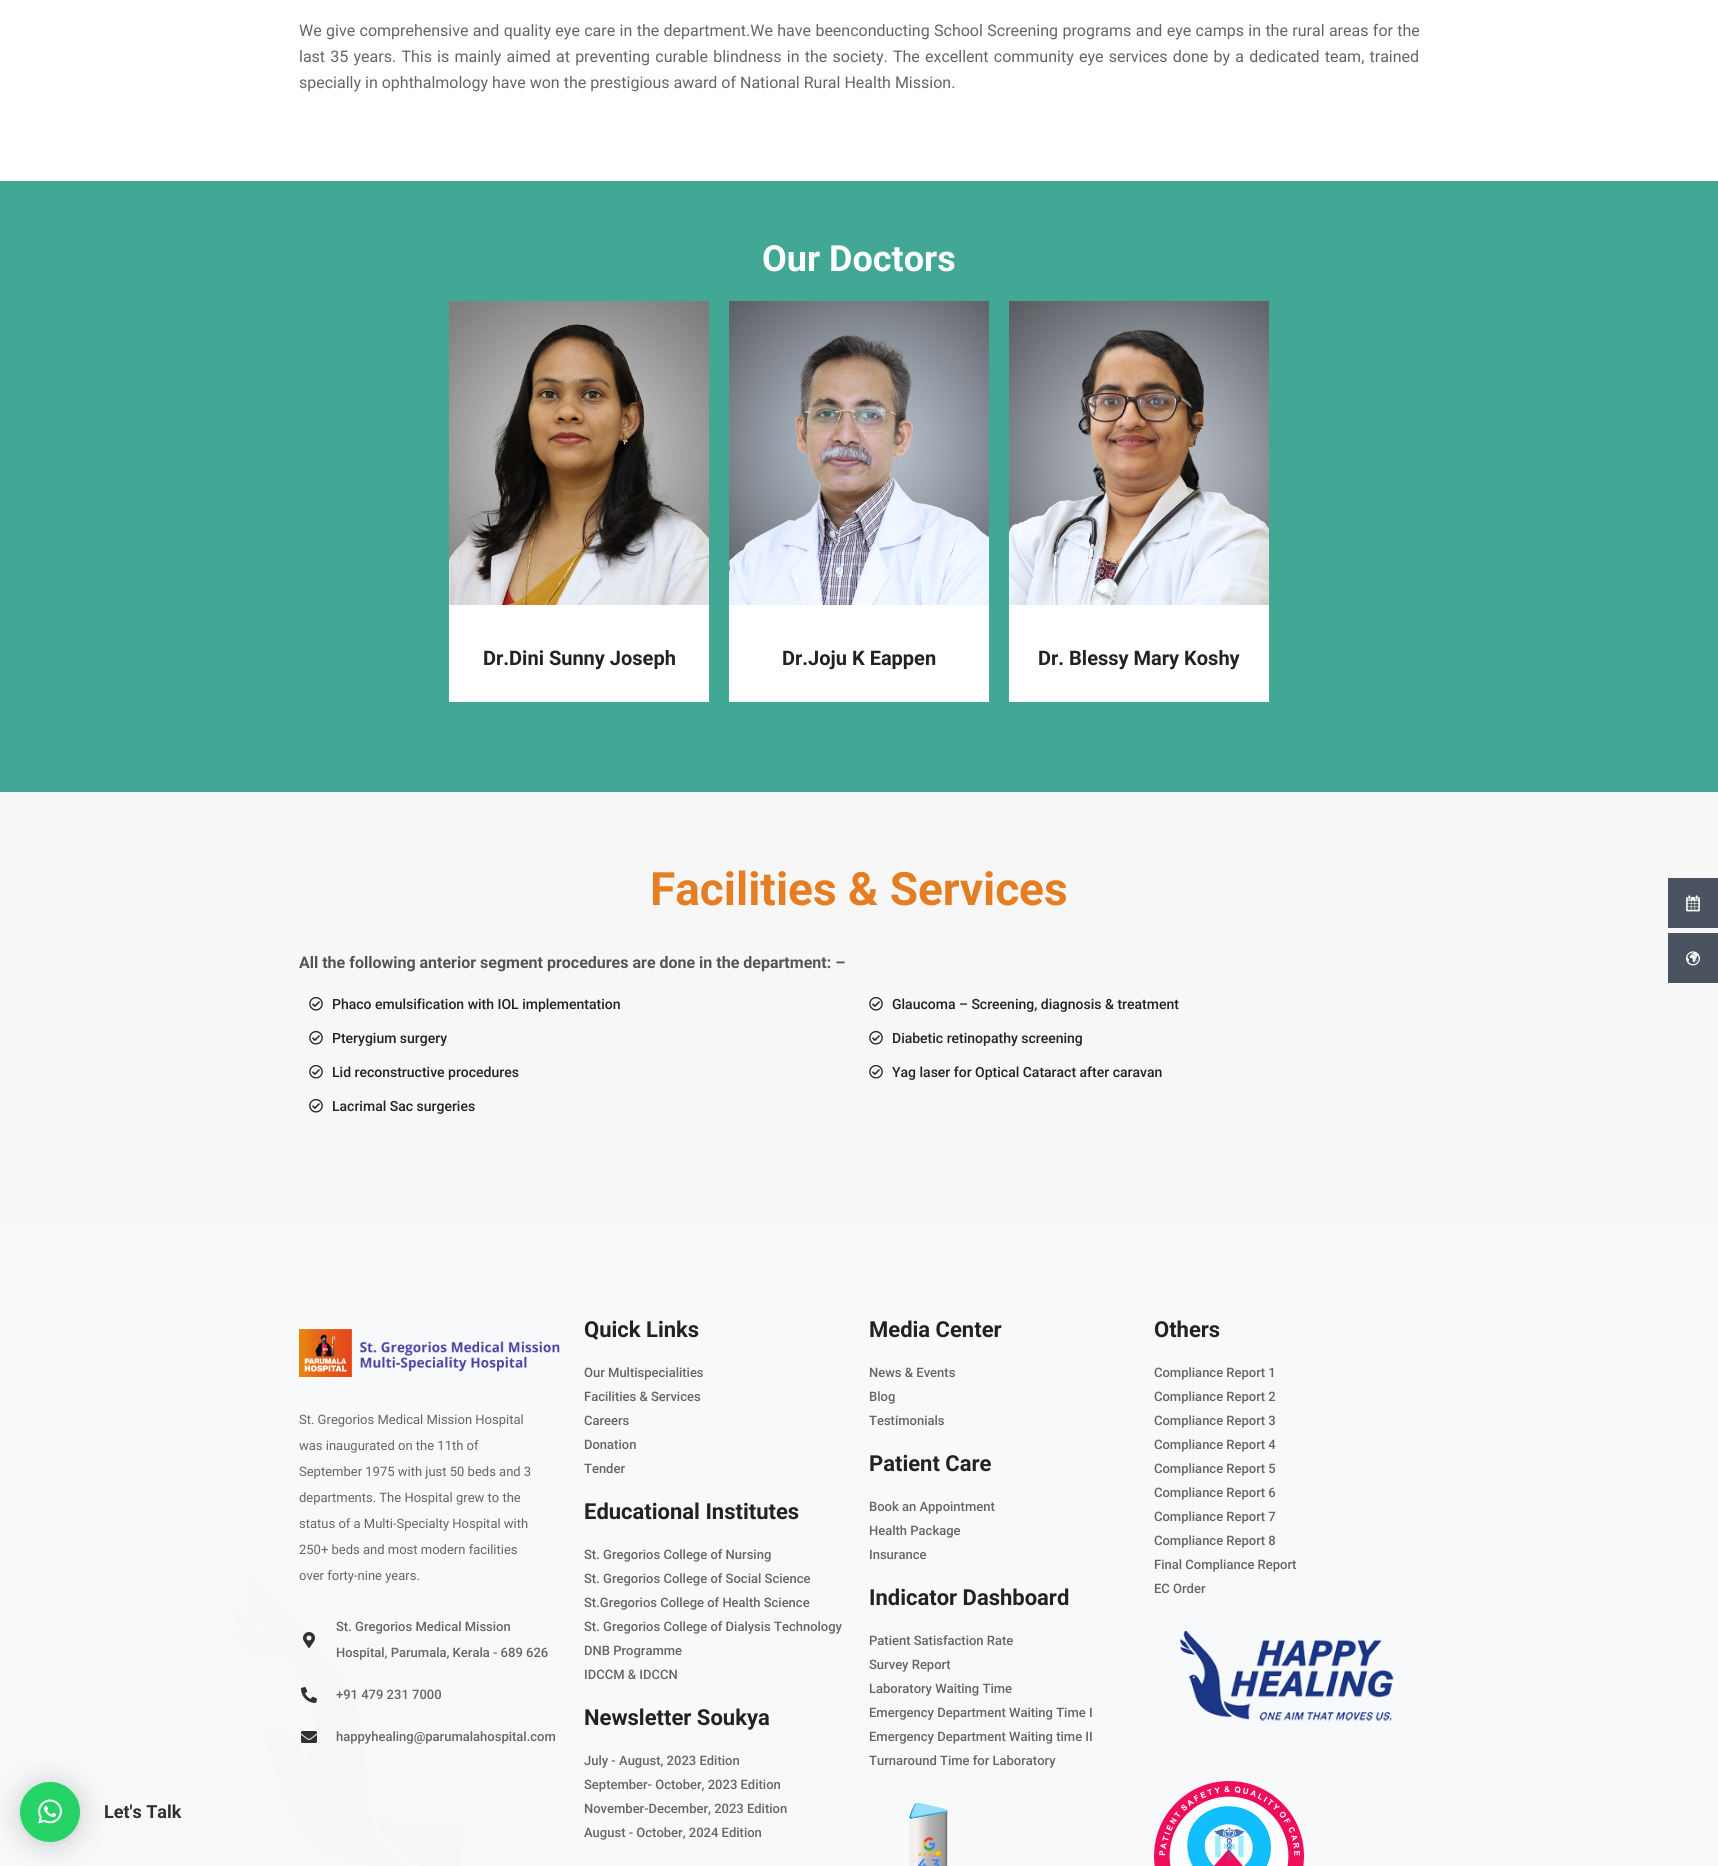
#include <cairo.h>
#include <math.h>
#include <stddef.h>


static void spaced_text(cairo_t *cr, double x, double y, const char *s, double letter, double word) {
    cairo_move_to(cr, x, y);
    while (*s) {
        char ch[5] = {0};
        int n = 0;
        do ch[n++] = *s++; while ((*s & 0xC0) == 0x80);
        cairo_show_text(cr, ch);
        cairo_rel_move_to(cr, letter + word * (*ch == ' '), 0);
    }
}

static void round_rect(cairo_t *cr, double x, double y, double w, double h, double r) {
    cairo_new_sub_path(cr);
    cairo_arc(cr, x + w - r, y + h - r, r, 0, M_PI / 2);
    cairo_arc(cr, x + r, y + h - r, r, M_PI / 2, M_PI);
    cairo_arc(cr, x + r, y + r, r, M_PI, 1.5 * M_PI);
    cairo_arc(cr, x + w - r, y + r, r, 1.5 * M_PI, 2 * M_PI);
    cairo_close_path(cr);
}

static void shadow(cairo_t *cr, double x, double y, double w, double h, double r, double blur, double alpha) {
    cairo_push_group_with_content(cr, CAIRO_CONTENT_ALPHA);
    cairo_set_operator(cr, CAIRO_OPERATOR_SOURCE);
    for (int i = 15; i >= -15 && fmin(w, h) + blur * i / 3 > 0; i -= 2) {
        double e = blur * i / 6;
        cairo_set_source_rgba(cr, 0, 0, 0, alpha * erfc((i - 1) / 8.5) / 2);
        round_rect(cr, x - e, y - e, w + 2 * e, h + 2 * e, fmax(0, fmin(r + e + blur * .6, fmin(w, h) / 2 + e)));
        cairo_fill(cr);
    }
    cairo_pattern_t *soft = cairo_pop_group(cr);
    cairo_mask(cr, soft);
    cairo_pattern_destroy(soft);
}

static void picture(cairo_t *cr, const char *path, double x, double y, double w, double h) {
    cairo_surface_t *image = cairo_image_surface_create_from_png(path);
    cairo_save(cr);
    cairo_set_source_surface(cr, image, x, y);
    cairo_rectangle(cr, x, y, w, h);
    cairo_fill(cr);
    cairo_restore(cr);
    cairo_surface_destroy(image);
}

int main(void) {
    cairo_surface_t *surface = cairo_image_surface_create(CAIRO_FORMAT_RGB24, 1718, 1866);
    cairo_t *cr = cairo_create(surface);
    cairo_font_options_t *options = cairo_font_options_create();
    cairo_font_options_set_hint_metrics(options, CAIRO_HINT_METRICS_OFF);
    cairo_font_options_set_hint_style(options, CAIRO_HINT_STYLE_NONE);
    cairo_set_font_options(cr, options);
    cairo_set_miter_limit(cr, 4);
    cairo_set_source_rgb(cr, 1, 1, 1);
    cairo_paint(cr);
    cairo_select_font_face(cr, "Roboto", CAIRO_FONT_SLANT_NORMAL, CAIRO_FONT_WEIGHT_NORMAL);
    cairo_set_font_size(cr, 16);
    cairo_set_source_rgb(cr, 0.396, 0.396, 0.396);
    spaced_text(cr, 299, 36, "We give comprehensive and quality eye care in the department.We have beenconducting School Screening programs and eye camps in the rural areas for the", 0, 0.4);
    spaced_text(cr, 299, 62, "last 35 years. This is mainly aimed at preventing curable blindness in the society. The excellent community eye services done by a dedicated team, trained", 0, 1.25);
    cairo_move_to(cr, 299, 88);
    cairo_show_text(cr, "specially in ophthalmology have won the prestigious award of National Rural Health Mission.");
    cairo_set_source_rgb(cr, 0.259, 0.659, 0.584);
    cairo_rectangle(cr, 0, 181, 1718, 611);
    cairo_fill(cr);
    cairo_select_font_face(cr, "Roboto", CAIRO_FONT_SLANT_NORMAL, CAIRO_FONT_WEIGHT_BOLD);
    cairo_set_font_size(cr, 36);
    cairo_set_source_rgb(cr, 1, 1, 1);
    cairo_move_to(cr, 762, 271);
    cairo_show_text(cr, "Our Doctors");
    cairo_rectangle(cr, 449, 605, 260, 97);
    cairo_fill(cr);
    picture(cr, "img1.png", 449, 301, 260, 304);
    cairo_set_font_size(cr, 20);
    cairo_set_source_rgb(cr, 0.133, 0.133, 0.133);
    cairo_move_to(cr, 483, 665);
    cairo_show_text(cr, "Dr.Dini Sunny Joseph");
    cairo_set_source_rgb(cr, 1, 1, 1);
    cairo_rectangle(cr, 729, 605, 260, 97);
    cairo_fill(cr);
    picture(cr, "img2.png", 729, 301, 260, 304);
    cairo_set_source_rgb(cr, 0.133, 0.133, 0.133);
    cairo_move_to(cr, 782, 665);
    cairo_show_text(cr, "Dr.Joju K Eappen");
    cairo_set_source_rgb(cr, 1, 1, 1);
    cairo_rectangle(cr, 1009, 605, 260, 97);
    cairo_fill(cr);
    picture(cr, "img3.png", 1009, 301, 260, 304);
    cairo_set_source_rgb(cr, 0.133, 0.133, 0.133);
    cairo_move_to(cr, 1038, 665);
    cairo_show_text(cr, "Dr. Blessy Mary Koshy");
    cairo_set_source_rgb(cr, 0.965, 0.965, 0.965);
    cairo_rectangle(cr, 0, 792, 1718, 427);
    cairo_fill(cr);
    cairo_set_font_size(cr, 46);
    cairo_set_source_rgb(cr, 0.898, 0.49, 0.133);
    cairo_move_to(cr, 650, 905);
    cairo_show_text(cr, "Facilities & Services");
    cairo_set_font_size(cr, 16);
    cairo_set_source_rgb(cr, 0.329, 0.329, 0.329);
    cairo_move_to(cr, 299, 968);
    cairo_show_text(cr, "All the following anterior segment procedures are done in the department: –");
    picture(cr, "img4.png", 309, 997, 14, 14);
    cairo_select_font_face(cr, "Roboto Medium", CAIRO_FONT_SLANT_NORMAL, CAIRO_FONT_WEIGHT_NORMAL);
    cairo_set_font_size(cr, 14);
    cairo_set_source_rgb(cr, 0.133, 0.133, 0.133);
    cairo_move_to(cr, 332, 1009);
    cairo_show_text(cr, "Phaco emulsification with IOL implementation");
    picture(cr, "img4.png", 309, 1031, 14, 14);
    cairo_move_to(cr, 332, 1043);
    cairo_show_text(cr, "Pterygium surgery");
    picture(cr, "img4.png", 309, 1065, 14, 14);
    cairo_move_to(cr, 332, 1077);
    cairo_show_text(cr, "Lid reconstructive procedures");
    picture(cr, "img4.png", 309, 1099, 14, 14);
    cairo_move_to(cr, 332, 1111);
    cairo_show_text(cr, "Lacrimal Sac surgeries");
    picture(cr, "img4.png", 869, 997, 14, 14);
    cairo_move_to(cr, 892, 1009);
    cairo_show_text(cr, "Glaucoma – Screening, diagnosis & treatment");
    picture(cr, "img4.png", 869, 1031, 14, 14);
    cairo_move_to(cr, 892, 1043);
    cairo_show_text(cr, "Diabetic retinopathy screening");
    picture(cr, "img4.png", 869, 1065, 14, 14);
    cairo_move_to(cr, 892, 1077);
    cairo_show_text(cr, "Yag laser for Optical Cataract after caravan");
    cairo_set_source_rgb(cr, 0.29, 0.325, 0.373);
    cairo_rectangle(cr, 1668, 878, 50, 50);
    cairo_fill(cr);
    picture(cr, "img5.png", 1686, 895, 14, 17);
    cairo_rectangle(cr, 1668, 933, 50, 50);
    cairo_fill(cr);
    picture(cr, "img6.png", 1686, 951, 14, 15);
    cairo_set_source_rgb(cr, 0.969, 0.976, 0.984);
    cairo_rectangle(cr, 0, 1219, 1718, 647);
    cairo_fill(cr);
    cairo_set_source_rgb(cr, 0, 0, 0);
    shadow(cr, 20, 1784, 60, 60, 30, 16, 0.16);
    shadow(cr, 20, 1783, 60, 60, 30, 3, 0.06);
    cairo_set_source_rgb(cr, 0.145, 0.827, 0.4);
    cairo_arc(cr, 50, 1812, 30, 0, 2 * M_PI);
    cairo_fill(cr);
    picture(cr, "img7.png", 38, 1799, 24, 25);
    cairo_select_font_face(cr, "Roboto", CAIRO_FONT_SLANT_NORMAL, CAIRO_FONT_WEIGHT_BOLD);
    cairo_set_font_size(cr, 18);
    cairo_set_source_rgb(cr, 0.188, 0.188, 0.188);
    cairo_move_to(cr, 104, 1818);
    cairo_show_text(cr, "Let's Talk");
    picture(cr, "img8.png", 232, 1575, 235, 291);
    picture(cr, "img9.png", 299, 1329, 261, 48);
    cairo_select_font_face(cr, "Roboto", CAIRO_FONT_SLANT_NORMAL, CAIRO_FONT_WEIGHT_NORMAL);
    cairo_set_font_size(cr, 13);
    cairo_set_source_rgb(cr, 0.396, 0.396, 0.396);
    cairo_move_to(cr, 299, 1424);
    cairo_show_text(cr, "St. Gregorios Medical Mission Hospital");
    cairo_move_to(cr, 299, 1450);
    cairo_show_text(cr, "was inaugurated on the 11th of");
    cairo_move_to(cr, 299, 1476);
    cairo_show_text(cr, "September 1975 with just 50 beds and 3");
    cairo_move_to(cr, 299, 1502);
    cairo_show_text(cr, "departments. The Hospital grew to the");
    cairo_move_to(cr, 299, 1528);
    cairo_show_text(cr, "status of a Multi-Specialty Hospital with");
    cairo_move_to(cr, 299, 1554);
    cairo_show_text(cr, "250+ beds and most modern facilities");
    cairo_move_to(cr, 299, 1580);
    cairo_show_text(cr, "over forty-nine years.");
    picture(cr, "img10.png", 303, 1632, 12, 16);
    cairo_select_font_face(cr, "Roboto Medium", CAIRO_FONT_SLANT_NORMAL, CAIRO_FONT_WEIGHT_NORMAL);
    cairo_move_to(cr, 336, 1631);
    cairo_show_text(cr, "St. Gregorios Medical Mission");
    cairo_move_to(cr, 336, 1657);
    cairo_show_text(cr, "Hospital, Parumala, Kerala - 689 626");
    picture(cr, "img11.png", 301, 1687, 16, 16);
    cairo_move_to(cr, 336, 1699);
    cairo_show_text(cr, "+91 479 231 7000");
    picture(cr, "img12.png", 301, 1731, 16, 12);
    cairo_move_to(cr, 336, 1741);
    cairo_show_text(cr, "happyhealing@parumalahospital.com");
    cairo_select_font_face(cr, "Roboto", CAIRO_FONT_SLANT_NORMAL, CAIRO_FONT_WEIGHT_BOLD);
    cairo_set_font_size(cr, 22);
    cairo_set_source_rgb(cr, 0.133, 0.133, 0.133);
    cairo_move_to(cr, 584, 1337);
    cairo_show_text(cr, "Quick Links");
    cairo_select_font_face(cr, "Roboto Medium", CAIRO_FONT_SLANT_NORMAL, CAIRO_FONT_WEIGHT_NORMAL);
    cairo_set_font_size(cr, 13);
    cairo_set_source_rgb(cr, 0.396, 0.396, 0.396);
    cairo_move_to(cr, 584, 1377);
    cairo_show_text(cr, "Our Multispecialities");
    cairo_move_to(cr, 584, 1401);
    cairo_show_text(cr, "Facilities & Services");
    cairo_move_to(cr, 584, 1425);
    cairo_show_text(cr, "Careers");
    cairo_move_to(cr, 584, 1449);
    cairo_show_text(cr, "Donation");
    cairo_move_to(cr, 584, 1473);
    cairo_show_text(cr, "Tender");
    cairo_select_font_face(cr, "Roboto", CAIRO_FONT_SLANT_NORMAL, CAIRO_FONT_WEIGHT_BOLD);
    cairo_set_font_size(cr, 22);
    cairo_set_source_rgb(cr, 0.133, 0.133, 0.133);
    cairo_move_to(cr, 584, 1519);
    cairo_show_text(cr, "Educational Institutes");
    cairo_select_font_face(cr, "Roboto Medium", CAIRO_FONT_SLANT_NORMAL, CAIRO_FONT_WEIGHT_NORMAL);
    cairo_set_font_size(cr, 13);
    cairo_set_source_rgb(cr, 0.396, 0.396, 0.396);
    cairo_move_to(cr, 584, 1559);
    cairo_show_text(cr, "St. Gregorios College of Nursing");
    cairo_move_to(cr, 584, 1583);
    cairo_show_text(cr, "St. Gregorios College of Social Science");
    cairo_move_to(cr, 584, 1607);
    cairo_show_text(cr, "St.Gregorios College of Health Science");
    cairo_move_to(cr, 584, 1631);
    cairo_show_text(cr, "St. Gregorios College of Dialysis Technology");
    cairo_move_to(cr, 584, 1655);
    cairo_show_text(cr, "DNB Programme");
    cairo_move_to(cr, 584, 1679);
    cairo_show_text(cr, "IDCCM & IDCCN");
    cairo_select_font_face(cr, "Roboto", CAIRO_FONT_SLANT_NORMAL, CAIRO_FONT_WEIGHT_BOLD);
    cairo_set_font_size(cr, 22);
    cairo_set_source_rgb(cr, 0.133, 0.133, 0.133);
    cairo_move_to(cr, 584, 1725);
    cairo_show_text(cr, "Newsletter Soukya");
    cairo_select_font_face(cr, "Roboto Medium", CAIRO_FONT_SLANT_NORMAL, CAIRO_FONT_WEIGHT_NORMAL);
    cairo_set_font_size(cr, 13);
    cairo_set_source_rgb(cr, 0.396, 0.396, 0.396);
    cairo_move_to(cr, 584, 1765);
    cairo_show_text(cr, "July - August, 2023 Edition");
    cairo_move_to(cr, 584, 1789);
    cairo_show_text(cr, "September- October, 2023 Edition");
    cairo_move_to(cr, 584, 1813);
    cairo_show_text(cr, "November-December, 2023 Edition");
    cairo_move_to(cr, 584, 1837);
    cairo_show_text(cr, "August - October, 2024 Edition");
    cairo_select_font_face(cr, "Roboto", CAIRO_FONT_SLANT_NORMAL, CAIRO_FONT_WEIGHT_BOLD);
    cairo_set_font_size(cr, 22);
    cairo_set_source_rgb(cr, 0.133, 0.133, 0.133);
    cairo_move_to(cr, 869, 1337);
    cairo_show_text(cr, "Media Center");
    cairo_select_font_face(cr, "Roboto Medium", CAIRO_FONT_SLANT_NORMAL, CAIRO_FONT_WEIGHT_NORMAL);
    cairo_set_font_size(cr, 13);
    cairo_set_source_rgb(cr, 0.396, 0.396, 0.396);
    cairo_move_to(cr, 869, 1377);
    cairo_show_text(cr, "News & Events");
    cairo_move_to(cr, 869, 1401);
    cairo_show_text(cr, "Blog");
    cairo_move_to(cr, 869, 1425);
    cairo_show_text(cr, "Testimonials");
    cairo_select_font_face(cr, "Roboto", CAIRO_FONT_SLANT_NORMAL, CAIRO_FONT_WEIGHT_BOLD);
    cairo_set_font_size(cr, 22);
    cairo_set_source_rgb(cr, 0.133, 0.133, 0.133);
    cairo_move_to(cr, 869, 1471);
    cairo_show_text(cr, "Patient Care");
    cairo_select_font_face(cr, "Roboto Medium", CAIRO_FONT_SLANT_NORMAL, CAIRO_FONT_WEIGHT_NORMAL);
    cairo_set_font_size(cr, 13);
    cairo_set_source_rgb(cr, 0.396, 0.396, 0.396);
    cairo_move_to(cr, 869, 1511);
    cairo_show_text(cr, "Book an Appointment");
    cairo_move_to(cr, 869, 1535);
    cairo_show_text(cr, "Health Package");
    cairo_move_to(cr, 869, 1559);
    cairo_show_text(cr, "Insurance");
    cairo_select_font_face(cr, "Roboto", CAIRO_FONT_SLANT_NORMAL, CAIRO_FONT_WEIGHT_BOLD);
    cairo_set_font_size(cr, 22);
    cairo_set_source_rgb(cr, 0.133, 0.133, 0.133);
    cairo_move_to(cr, 869, 1605);
    cairo_show_text(cr, "Indicator Dashboard");
    cairo_select_font_face(cr, "Roboto Medium", CAIRO_FONT_SLANT_NORMAL, CAIRO_FONT_WEIGHT_NORMAL);
    cairo_set_font_size(cr, 13);
    cairo_set_source_rgb(cr, 0.396, 0.396, 0.396);
    cairo_move_to(cr, 869, 1645);
    cairo_show_text(cr, "Patient Satisfaction Rate");
    cairo_move_to(cr, 869, 1669);
    cairo_show_text(cr, "Survey Report");
    cairo_move_to(cr, 869, 1693);
    cairo_show_text(cr, "Laboratory Waiting Time");
    cairo_move_to(cr, 869, 1717);
    cairo_show_text(cr, "Emergency Department Waiting Time I");
    cairo_move_to(cr, 869, 1741);
    cairo_show_text(cr, "Emergency Department Waiting time II");
    cairo_move_to(cr, 869, 1765);
    cairo_show_text(cr, "Turnaround Time for Laboratory");
    picture(cr, "img13.png", 909, 1803, 39, 63);
    cairo_select_font_face(cr, "Roboto", CAIRO_FONT_SLANT_NORMAL, CAIRO_FONT_WEIGHT_BOLD);
    cairo_set_font_size(cr, 22);
    cairo_set_source_rgb(cr, 0.133, 0.133, 0.133);
    cairo_move_to(cr, 1154, 1337);
    cairo_show_text(cr, "Others");
    cairo_select_font_face(cr, "Roboto Medium", CAIRO_FONT_SLANT_NORMAL, CAIRO_FONT_WEIGHT_NORMAL);
    cairo_set_font_size(cr, 13);
    cairo_set_source_rgb(cr, 0.396, 0.396, 0.396);
    cairo_move_to(cr, 1154, 1377);
    cairo_show_text(cr, "Compliance Report 1");
    cairo_move_to(cr, 1154, 1401);
    cairo_show_text(cr, "Compliance Report 2");
    cairo_move_to(cr, 1154, 1425);
    cairo_show_text(cr, "Compliance Report 3");
    cairo_move_to(cr, 1154, 1449);
    cairo_show_text(cr, "Compliance Report 4");
    cairo_move_to(cr, 1154, 1473);
    cairo_show_text(cr, "Compliance Report 5");
    cairo_move_to(cr, 1154, 1497);
    cairo_show_text(cr, "Compliance Report 6");
    cairo_move_to(cr, 1154, 1521);
    cairo_show_text(cr, "Compliance Report 7");
    cairo_move_to(cr, 1154, 1545);
    cairo_show_text(cr, "Compliance Report 8");
    cairo_move_to(cr, 1154, 1569);
    cairo_show_text(cr, "Final Compliance Report");
    cairo_move_to(cr, 1154, 1593);
    cairo_show_text(cr, "EC Order");
    picture(cr, "img14.png", 1179, 1631, 215, 90);
    picture(cr, "img15.png", 1154, 1781, 150, 85);
    cairo_surface_write_to_png(surface, "page.png");
    cairo_font_options_destroy(options);
    cairo_destroy(cr);
    cairo_surface_destroy(surface);
    return 0;
}
